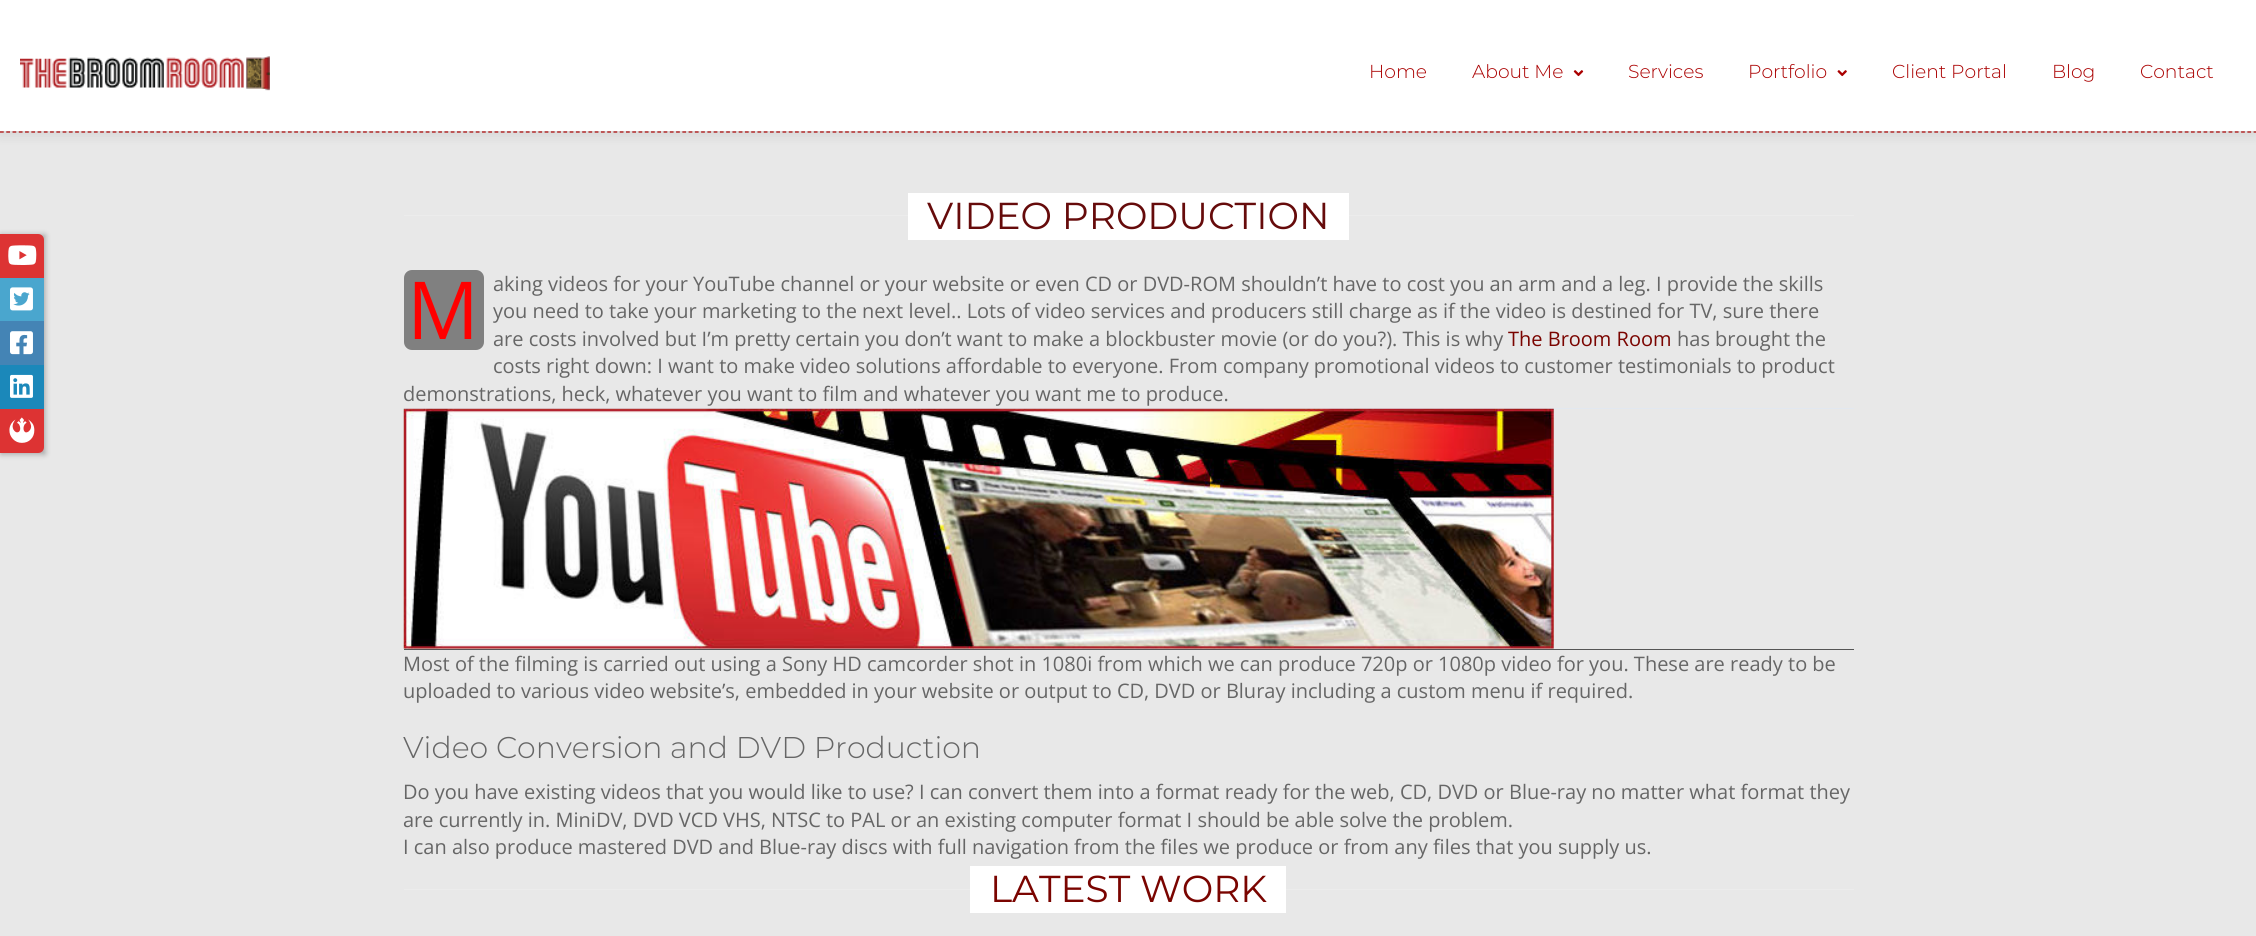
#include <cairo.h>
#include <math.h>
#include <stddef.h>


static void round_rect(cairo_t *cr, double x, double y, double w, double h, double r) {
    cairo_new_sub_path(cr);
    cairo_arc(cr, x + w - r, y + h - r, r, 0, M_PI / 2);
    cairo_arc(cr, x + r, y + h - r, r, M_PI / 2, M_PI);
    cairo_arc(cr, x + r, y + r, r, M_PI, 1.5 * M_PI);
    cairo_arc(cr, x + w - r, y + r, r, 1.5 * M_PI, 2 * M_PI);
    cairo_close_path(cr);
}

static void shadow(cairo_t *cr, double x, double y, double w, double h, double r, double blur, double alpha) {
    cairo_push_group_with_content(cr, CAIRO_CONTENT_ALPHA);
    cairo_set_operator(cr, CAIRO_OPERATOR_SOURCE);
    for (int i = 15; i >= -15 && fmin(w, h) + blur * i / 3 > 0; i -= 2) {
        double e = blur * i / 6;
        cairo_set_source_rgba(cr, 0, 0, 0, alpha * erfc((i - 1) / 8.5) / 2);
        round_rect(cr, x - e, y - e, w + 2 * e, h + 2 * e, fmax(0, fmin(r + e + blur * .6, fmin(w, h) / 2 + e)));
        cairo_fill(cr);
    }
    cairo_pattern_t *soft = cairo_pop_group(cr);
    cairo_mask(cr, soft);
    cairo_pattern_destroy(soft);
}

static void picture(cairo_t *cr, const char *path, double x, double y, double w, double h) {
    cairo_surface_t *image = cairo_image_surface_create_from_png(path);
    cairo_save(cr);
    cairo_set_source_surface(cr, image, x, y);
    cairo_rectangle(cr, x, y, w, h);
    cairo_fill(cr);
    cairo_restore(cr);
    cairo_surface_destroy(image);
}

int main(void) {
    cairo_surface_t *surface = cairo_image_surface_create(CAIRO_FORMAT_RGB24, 2256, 936);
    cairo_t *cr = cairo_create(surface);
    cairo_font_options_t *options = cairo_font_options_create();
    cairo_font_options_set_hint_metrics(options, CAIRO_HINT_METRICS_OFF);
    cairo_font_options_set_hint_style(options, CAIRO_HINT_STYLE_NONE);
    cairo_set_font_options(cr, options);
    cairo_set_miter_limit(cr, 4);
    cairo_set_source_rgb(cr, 0.91, 0.91, 0.91);
    cairo_paint(cr);
    cairo_set_source_rgb(cr, 0, 0, 0);
    shadow(cr, 1, 235, 44, 219, 0, 3, 0.3);
    cairo_set_source_rgb(cr, 0.867, 0.2, 0.2);
    cairo_new_path(cr);
    cairo_move_to(cr, 0, 234);
    cairo_line_to(cr, 38, 234);
    cairo_curve_to(cr, 41.5, 234, 44, 236.5, 44, 240);
    cairo_line_to(cr, 44, 278);
    cairo_line_to(cr, 0, 278);
    cairo_close_path(cr);
    cairo_fill(cr);
    picture(cr, "img1.png", 8, 245, 29, 20);
    cairo_set_source_rgb(cr, 0.29, 0.651, 0.808);
    cairo_rectangle(cr, 0, 278, 44, 43);
    cairo_fill(cr);
    picture(cr, "img2.png", 10, 287, 23, 24);
    cairo_set_source_rgb(cr, 0.267, 0.518, 0.71);
    cairo_rectangle(cr, 0, 321, 44, 44);
    cairo_fill(cr);
    picture(cr, "img3.png", 10, 331, 23, 24);
    cairo_set_source_rgb(cr, 0.106, 0.533, 0.729);
    cairo_rectangle(cr, 0, 365, 44, 44);
    cairo_fill(cr);
    picture(cr, "img4.png", 10, 374, 23, 24);
    cairo_set_source_rgb(cr, 0.867, 0.2, 0.2);
    cairo_new_path(cr);
    cairo_move_to(cr, 0, 409);
    cairo_line_to(cr, 44, 409);
    cairo_line_to(cr, 44, 447);
    cairo_curve_to(cr, 44, 450.5, 41.5, 453, 38, 453);
    cairo_line_to(cr, 0, 453);
    cairo_close_path(cr);
    cairo_fill(cr);
    picture(cr, "img5.png", 9, 417, 26, 26);
    cairo_new_path(cr);
    cairo_move_to(cr, 0, 132);
    cairo_line_to(cr, 2256, 132);
    cairo_set_source_rgb(cr, 0.71, 0, 0);
    cairo_set_line_width(cr, 1.2);
    cairo_set_dash(cr, (double[]){3.75, 2.51}, 2, 0);
    cairo_stroke(cr);
    cairo_set_source_rgb(cr, 0, 0, 0);
    shadow(cr, 0, 5, 2256, 131, 0, 6, 0.08);
    cairo_set_source_rgb(cr, 1, 1, 1);
    cairo_rectangle(cr, 0, 0, 2256, 131);
    cairo_fill(cr);
    picture(cr, "img6.png", 20, 56, 250, 35);
    cairo_select_font_face(cr, "Montserrat Light", CAIRO_FONT_SLANT_NORMAL, CAIRO_FONT_WEIGHT_NORMAL);
    cairo_set_font_size(cr, 18.75);
    cairo_set_source_rgb(cr, 0.667, 0, 0);
    cairo_move_to(cr, 1369, 78);
    cairo_show_text(cr, "Home");
    cairo_move_to(cr, 1472, 78);
    cairo_show_text(cr, "About Me");
    picture(cr, "img7.png", 1573, 70, 11, 7);
    cairo_move_to(cr, 1628, 78);
    cairo_show_text(cr, "Services");
    cairo_move_to(cr, 1748, 78);
    cairo_show_text(cr, "Portfolio");
    picture(cr, "img8.png", 1837, 70, 10, 7);
    cairo_move_to(cr, 1892, 78);
    cairo_show_text(cr, "Client Portal");
    cairo_move_to(cr, 2052, 78);
    cairo_show_text(cr, "Blog");
    cairo_move_to(cr, 2140, 78);
    cairo_show_text(cr, "Contact");
    cairo_set_source_rgb(cr, 0.922, 0.922, 0.922);
    cairo_rectangle(cr, 404, 215, 504, 1);
    cairo_fill(cr);
    cairo_set_source_rgb(cr, 1, 1, 1);
    cairo_rectangle(cr, 908, 193, 441, 47);
    cairo_fill(cr);
    cairo_select_font_face(cr, "Montserrat", CAIRO_FONT_SLANT_NORMAL, CAIRO_FONT_WEIGHT_NORMAL);
    cairo_set_font_size(cr, 37.5);
    cairo_set_source_rgb(cr, 0.4, 0.043, 0.043);
    cairo_move_to(cr, 927, 229);
    cairo_show_text(cr, "VIDEO PRODUCTION");
    cairo_set_source_rgb(cr, 0.922, 0.922, 0.922);
    cairo_rectangle(cr, 1349, 215, 505, 1);
    cairo_fill(cr);
    cairo_set_source_rgb(cr, 0.502, 0.502, 0.502);
    round_rect(cr, 404, 270, 80, 80, 8);
    cairo_fill(cr);
    cairo_select_font_face(cr, "Open Sans", CAIRO_FONT_SLANT_NORMAL, CAIRO_FONT_WEIGHT_NORMAL);
    cairo_set_font_size(cr, 80);
    cairo_set_source_rgb(cr, 1, 0, 0);
    cairo_move_to(cr, 407, 339);
    cairo_show_text(cr, "M");
    cairo_set_font_size(cr, 20);
    cairo_set_source_rgb(cr, 0.4, 0.4, 0.4);
    cairo_move_to(cr, 493, 291);
    cairo_show_text(cr, "aking videos for your YouTube channel or your website or even CD or DVD-ROM shouldn’t have to cost you an arm and a leg. I provide the skills");
    cairo_move_to(cr, 493, 318);
    cairo_show_text(cr, "you need to take your marketing to the next level.. Lots of video services and producers still charge as if the video is destined for TV, sure there");
    cairo_move_to(cr, 493, 346);
    cairo_show_text(cr, "are costs involved but I’m pretty certain you don’t want to make a blockbuster movie (or do you?). This is why");
    cairo_set_source_rgb(cr, 0.478, 0.016, 0);
    cairo_move_to(cr, 1508, 346);
    cairo_show_text(cr, "The Broom Room");
    cairo_set_source_rgb(cr, 0.4, 0.4, 0.4);
    cairo_move_to(cr, 1677, 346);
    cairo_show_text(cr, "has brought the");
    cairo_move_to(cr, 493, 373);
    cairo_show_text(cr, "costs right down: I want to make video solutions affordable to everyone. From company promotional videos to customer testimonials to product");
    cairo_move_to(cr, 403, 401);
    cairo_show_text(cr, "demonstrations, heck, whatever you want to film and whatever you want me to produce.");
    cairo_set_source_rgb(cr, 0.886, 0.91, 0.941);
    cairo_rectangle(cr, 404, 408, 1450, 1);
    cairo_fill(cr);
    picture(cr, "img9.png", 403, 408, 1151, 241);
    cairo_set_source_rgb(cr, 0.333, 0.333, 0.333);
    cairo_rectangle(cr, 404, 649, 1450, 1);
    cairo_fill(cr);
    cairo_set_source_rgb(cr, 0.4, 0.4, 0.4);
    cairo_move_to(cr, 403, 671);
    cairo_show_text(cr, "Most of the filming is carried out using a Sony HD camcorder shot in 1080i from which we can produce 720p or 1080p video for you. These are ready to be");
    cairo_move_to(cr, 403, 698);
    cairo_show_text(cr, "uploaded to various video website’s, embedded in your website or output to CD, DVD or Bluray including a custom menu if required.");
    cairo_select_font_face(cr, "Montserrat Light", CAIRO_FONT_SLANT_NORMAL, CAIRO_FONT_WEIGHT_NORMAL);
    cairo_set_font_size(cr, 30);
    cairo_move_to(cr, 403, 758);
    cairo_show_text(cr, "Video Conversion and DVD Production");
    cairo_select_font_face(cr, "Open Sans", CAIRO_FONT_SLANT_NORMAL, CAIRO_FONT_WEIGHT_NORMAL);
    cairo_set_font_size(cr, 20);
    cairo_move_to(cr, 403, 799);
    cairo_show_text(cr, "Do you have existing videos that you would like to use? I can convert them into a format ready for the web, CD, DVD or Blue-ray no matter what format they");
    cairo_move_to(cr, 403, 827);
    cairo_show_text(cr, "are currently in. MiniDV, DVD VCD VHS, NTSC to PAL or an existing computer format I should be able solve the problem.");
    cairo_move_to(cr, 403, 854);
    cairo_show_text(cr, "I can also produce mastered DVD and Blue-ray discs with full navigation from the files we produce or from any files that you supply us.");
    cairo_set_source_rgb(cr, 0.922, 0.922, 0.922);
    cairo_rectangle(cr, 404, 889, 566, 1);
    cairo_fill(cr);
    cairo_set_source_rgb(cr, 1, 1, 1);
    cairo_rectangle(cr, 970, 866, 316, 47);
    cairo_fill(cr);
    cairo_select_font_face(cr, "Montserrat", CAIRO_FONT_SLANT_NORMAL, CAIRO_FONT_WEIGHT_NORMAL);
    cairo_set_font_size(cr, 37.5);
    cairo_set_source_rgb(cr, 0.478, 0.016, 0);
    cairo_move_to(cr, 990, 902);
    cairo_show_text(cr, "LATEST WORK");
    cairo_set_source_rgb(cr, 0.922, 0.922, 0.922);
    cairo_rectangle(cr, 1286, 889, 568, 1);
    cairo_fill(cr);
    cairo_surface_write_to_png(surface, "page.png");
    cairo_font_options_destroy(options);
    cairo_destroy(cr);
    cairo_surface_destroy(surface);
    return 0;
}
